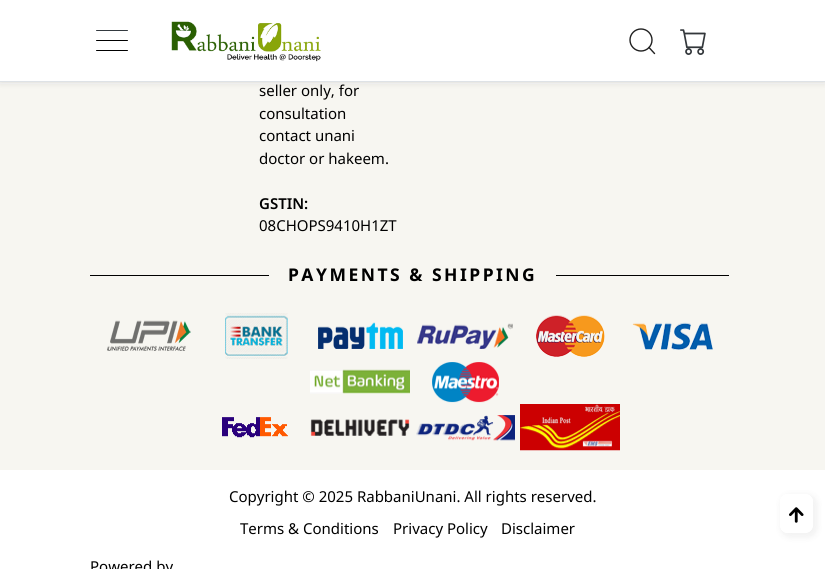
#include <cairo.h>
#include <math.h>
#include <stddef.h>


static void spaced_text(cairo_t *cr, double x, double y, const char *s, double letter, double word) {
    cairo_move_to(cr, x, y);
    while (*s) {
        char ch[5] = {0};
        int n = 0;
        do ch[n++] = *s++; while ((*s & 0xC0) == 0x80);
        cairo_show_text(cr, ch);
        cairo_rel_move_to(cr, letter + word * (*ch == ' '), 0);
    }
}

static void round_rect(cairo_t *cr, double x, double y, double w, double h, double r) {
    cairo_new_sub_path(cr);
    cairo_arc(cr, x + w - r, y + h - r, r, 0, M_PI / 2);
    cairo_arc(cr, x + r, y + h - r, r, M_PI / 2, M_PI);
    cairo_arc(cr, x + r, y + r, r, M_PI, 1.5 * M_PI);
    cairo_arc(cr, x + w - r, y + r, r, 1.5 * M_PI, 2 * M_PI);
    cairo_close_path(cr);
}

static void shadow(cairo_t *cr, double x, double y, double w, double h, double r, double blur, double alpha) {
    cairo_push_group_with_content(cr, CAIRO_CONTENT_ALPHA);
    cairo_set_operator(cr, CAIRO_OPERATOR_SOURCE);
    for (int i = 15; i >= -15 && fmin(w, h) + blur * i / 3 > 0; i -= 2) {
        double e = blur * i / 6;
        cairo_set_source_rgba(cr, 0, 0, 0, alpha * erfc((i - 1) / 8.5) / 2);
        round_rect(cr, x - e, y - e, w + 2 * e, h + 2 * e, fmax(0, fmin(r + e + blur * .6, fmin(w, h) / 2 + e)));
        cairo_fill(cr);
    }
    cairo_pattern_t *soft = cairo_pop_group(cr);
    cairo_mask(cr, soft);
    cairo_pattern_destroy(soft);
}

static void picture(cairo_t *cr, const char *path, double x, double y, double w, double h) {
    cairo_surface_t *image = cairo_image_surface_create_from_png(path);
    cairo_save(cr);
    cairo_set_source_surface(cr, image, x, y);
    cairo_rectangle(cr, x, y, w, h);
    cairo_fill(cr);
    cairo_restore(cr);
    cairo_surface_destroy(image);
}

int main(void) {
    cairo_surface_t *surface = cairo_image_surface_create(CAIRO_FORMAT_RGB24, 825, 569);
    cairo_t *cr = cairo_create(surface);
    cairo_font_options_t *options = cairo_font_options_create();
    cairo_font_options_set_hint_metrics(options, CAIRO_HINT_METRICS_OFF);
    cairo_font_options_set_hint_style(options, CAIRO_HINT_STYLE_NONE);
    cairo_set_font_options(cr, options);
    cairo_set_miter_limit(cr, 4);
    cairo_set_source_rgb(cr, 0.965, 0.961, 0.945);
    cairo_paint(cr);
    cairo_set_source_rgb(cr, 0.02, 0.02, 0.039);
    shadow(cr, 0, 0, 825, 84, 0, 3, 0.08);
    cairo_set_source_rgb(cr, 0.933, 0.933, 0.933);
    cairo_rectangle(cr, 0, 83, 825, 1);
    cairo_fill(cr);
    cairo_set_source_rgb(cr, 1, 1, 1);
    cairo_rectangle(cr, 0, 0, 825, 81);
    cairo_fill(cr);
    cairo_set_source_rgb(cr, 0, 0, 0);
    round_rect(cr, 96, 50, 32, 1, 0.5);
    cairo_fill(cr);
    round_rect(cr, 96, 40, 32, 1, 0.5);
    cairo_fill(cr);
    cairo_set_source_rgb(cr, 0.204, 0.227, 0.251);
    round_rect(cr, 96, 30, 32, 1, 0.5);
    cairo_fill(cr);
    picture(cr, "img1.png", 171, 21, 150, 41);
    cairo_arc(cr, 641, 40, 11, 0, 2 * M_PI);
    cairo_set_source_rgb(cr, 0.129, 0.129, 0.129);
    cairo_set_line_width(cr, 1.4);
    cairo_stroke(cr);
    cairo_new_path(cr);
    cairo_move_to(cr, 654.5, 53.5);
    cairo_line_to(cr, 649, 47.5);
    cairo_set_line_cap(cr, CAIRO_LINE_CAP_ROUND);
    cairo_set_line_join(cr, CAIRO_LINE_JOIN_ROUND);
    cairo_stroke(cr);
    picture(cr, "img2.png", 680, 29, 26, 26);
    cairo_set_source_rgb(cr, 0.871, 0.886, 0.902);
    cairo_rectangle(cr, 0, 81, 825, 1);
    cairo_fill(cr);
    cairo_select_font_face(cr, "Noto Sans", CAIRO_FONT_SLANT_NORMAL, CAIRO_FONT_WEIGHT_NORMAL);
    cairo_set_font_size(cr, 15);
    cairo_set_source_rgb(cr, 0, 0, 0);
    cairo_move_to(cr, 259, 96);
    cairo_show_text(cr, "seller only, for");
    cairo_move_to(cr, 259, 119);
    cairo_show_text(cr, "consultation");
    cairo_move_to(cr, 259, 141);
    cairo_show_text(cr, "contact unani");
    cairo_move_to(cr, 259, 164);
    cairo_show_text(cr, "doctor or hakeem.");
    cairo_select_font_face(cr, "Noto Sans SemiBold", CAIRO_FONT_SLANT_NORMAL, CAIRO_FONT_WEIGHT_NORMAL);
    cairo_move_to(cr, 259, 209);
    cairo_show_text(cr, "GSTIN:");
    cairo_select_font_face(cr, "Noto Sans", CAIRO_FONT_SLANT_NORMAL, CAIRO_FONT_WEIGHT_NORMAL);
    cairo_move_to(cr, 259, 231);
    cairo_show_text(cr, "08CHOPS9410H1ZT");
    cairo_rectangle(cr, 90, 275, 639, 1);
    cairo_fill(cr);
    cairo_set_source_rgb(cr, 0.965, 0.961, 0.945);
    cairo_rectangle(cr, 269, 275, 287, 1);
    cairo_fill(cr);
    cairo_select_font_face(cr, "Noto Sans", CAIRO_FONT_SLANT_NORMAL, CAIRO_FONT_WEIGHT_BOLD);
    cairo_set_font_size(cr, 17.5);
    cairo_set_source_rgb(cr, 0, 0, 0);
    spaced_text(cr, 288, 281, "PAYMENTS & SHIPPING", 2.5, 0);
    picture(cr, "img3.png", 107, 320, 84, 31);
    picture(cr, "img4.png", 225, 313, 63, 46);
    picture(cr, "img5.png", 318, 322, 85, 27);
    picture(cr, "img6.png", 417, 323, 96, 26);
    picture(cr, "img7.png", 536, 315, 69, 42);
    picture(cr, "img8.png", 632, 322, 81, 28);
    picture(cr, "img9.png", 310, 369, 100, 25);
    picture(cr, "img10.png", 432, 362, 67, 41);
    picture(cr, "img11.png", 222, 417, 66, 21);
    picture(cr, "img12.png", 310, 419, 100, 17);
    picture(cr, "img13.png", 416, 415, 99, 26);
    picture(cr, "img14.png", 520, 404, 100, 47);
    cairo_set_source_rgb(cr, 1, 1, 1);
    cairo_rectangle(cr, 0, 470, 825, 99);
    cairo_fill(cr);
    cairo_select_font_face(cr, "Noto Sans", CAIRO_FONT_SLANT_NORMAL, CAIRO_FONT_WEIGHT_NORMAL);
    cairo_set_font_size(cr, 15);
    cairo_set_source_rgb(cr, 0, 0, 0);
    cairo_move_to(cr, 229, 502);
    cairo_show_text(cr, "Copyright © 2025 RabbaniUnani. All rights reserved.");
    cairo_move_to(cr, 240, 534);
    cairo_show_text(cr, "Terms & Conditions");
    cairo_move_to(cr, 393, 534);
    cairo_show_text(cr, "Privacy Policy");
    cairo_move_to(cr, 501, 534);
    cairo_show_text(cr, "Disclaimer");
    cairo_move_to(cr, 90, 572);
    cairo_show_text(cr, "Powered by");
    cairo_save(cr);
    cairo_set_fill_rule(cr, CAIRO_FILL_RULE_EVEN_ODD);
    cairo_new_path(cr);
    cairo_move_to(cr, 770, 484);
    cairo_line_to(cr, 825, 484);
    cairo_line_to(cr, 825, 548);
    cairo_line_to(cr, 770, 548);
    cairo_close_path(cr);
    cairo_move_to(cr, 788, 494);
    cairo_line_to(cr, 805, 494);
    cairo_curve_to(cr, 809.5, 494, 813, 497.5, 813, 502);
    cairo_line_to(cr, 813, 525);
    cairo_curve_to(cr, 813, 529.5, 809.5, 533, 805, 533);
    cairo_line_to(cr, 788, 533);
    cairo_curve_to(cr, 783.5, 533, 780, 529.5, 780, 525);
    cairo_line_to(cr, 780, 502);
    cairo_curve_to(cr, 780, 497.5, 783.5, 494, 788, 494);
    cairo_close_path(cr);
    cairo_clip(cr);
    cairo_set_source_rgb(cr, 0, 0, 0);
    shadow(cr, 780, 494, 38, 44, 10, 3, 0.05);
    cairo_restore(cr);
    cairo_set_source_rgba(cr, 1, 1, 1, 0.9);
    round_rect(cr, 780, 494, 33, 39, 8);
    cairo_fill(cr);
    picture(cr, "img15.png", 789, 507, 15, 16);
    cairo_surface_write_to_png(surface, "page.png");
    cairo_font_options_destroy(options);
    cairo_destroy(cr);
    cairo_surface_destroy(surface);
    return 0;
}
